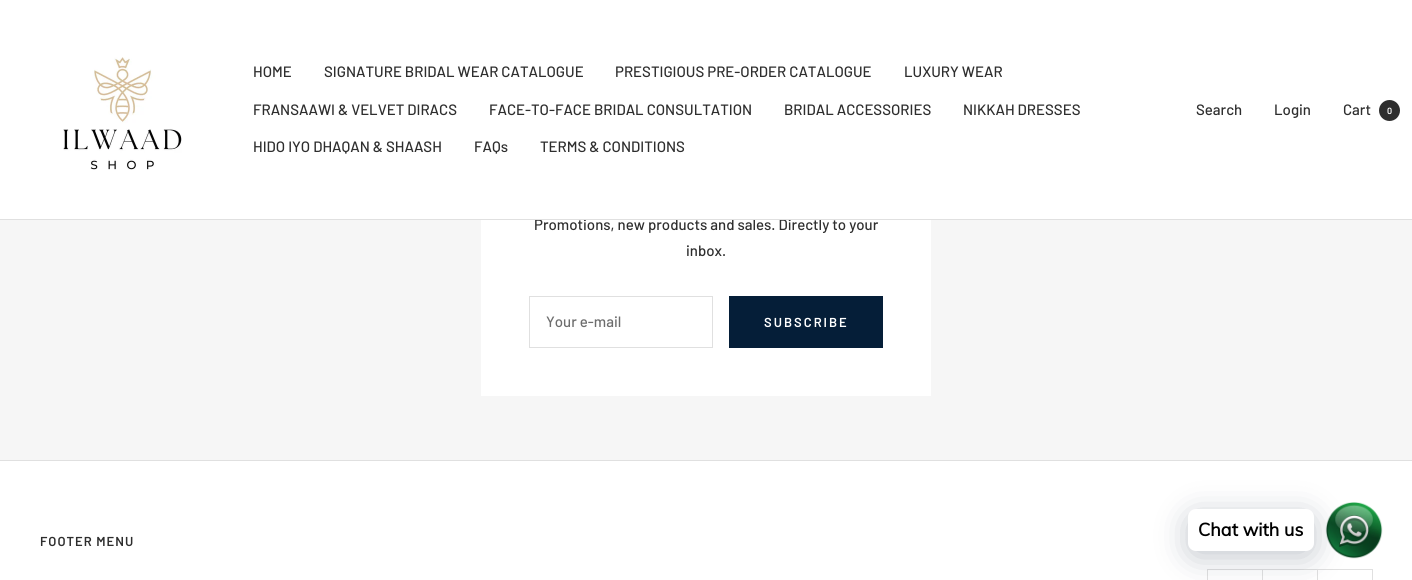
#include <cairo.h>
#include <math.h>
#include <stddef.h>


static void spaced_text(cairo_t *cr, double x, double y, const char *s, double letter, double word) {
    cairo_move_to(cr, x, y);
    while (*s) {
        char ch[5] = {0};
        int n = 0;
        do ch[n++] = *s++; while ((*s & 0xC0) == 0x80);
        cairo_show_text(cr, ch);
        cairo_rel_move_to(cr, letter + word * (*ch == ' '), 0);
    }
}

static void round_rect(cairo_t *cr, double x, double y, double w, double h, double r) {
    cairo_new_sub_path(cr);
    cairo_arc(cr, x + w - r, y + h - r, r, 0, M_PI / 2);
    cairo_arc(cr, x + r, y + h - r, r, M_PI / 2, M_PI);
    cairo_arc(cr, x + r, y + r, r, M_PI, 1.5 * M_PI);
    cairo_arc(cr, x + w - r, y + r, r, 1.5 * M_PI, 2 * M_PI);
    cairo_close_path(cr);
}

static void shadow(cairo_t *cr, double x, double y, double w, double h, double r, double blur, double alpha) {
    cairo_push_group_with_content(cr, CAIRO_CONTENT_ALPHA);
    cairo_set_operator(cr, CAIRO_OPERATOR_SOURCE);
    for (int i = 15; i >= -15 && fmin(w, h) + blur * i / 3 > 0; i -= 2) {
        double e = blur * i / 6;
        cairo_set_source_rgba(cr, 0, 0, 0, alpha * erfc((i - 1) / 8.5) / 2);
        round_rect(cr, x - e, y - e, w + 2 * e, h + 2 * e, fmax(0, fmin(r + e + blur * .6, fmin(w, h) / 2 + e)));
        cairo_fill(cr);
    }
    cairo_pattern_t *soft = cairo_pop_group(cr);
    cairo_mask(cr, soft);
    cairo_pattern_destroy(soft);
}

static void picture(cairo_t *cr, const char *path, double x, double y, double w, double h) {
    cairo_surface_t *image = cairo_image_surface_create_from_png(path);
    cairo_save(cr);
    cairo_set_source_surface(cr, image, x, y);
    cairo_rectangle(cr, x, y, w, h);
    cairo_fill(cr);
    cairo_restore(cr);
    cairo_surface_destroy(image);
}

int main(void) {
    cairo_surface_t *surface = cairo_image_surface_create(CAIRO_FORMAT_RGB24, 1412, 580);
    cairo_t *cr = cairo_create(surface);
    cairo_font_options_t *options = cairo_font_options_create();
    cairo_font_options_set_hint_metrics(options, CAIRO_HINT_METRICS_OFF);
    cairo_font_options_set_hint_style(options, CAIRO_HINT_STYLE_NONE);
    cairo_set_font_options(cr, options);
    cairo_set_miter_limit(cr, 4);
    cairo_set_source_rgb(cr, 1, 1, 1);
    cairo_paint(cr);
    cairo_set_source_rgb(cr, 0.961, 0.961, 0.961);
    cairo_rectangle(cr, 0, 220, 1412, 240);
    cairo_fill(cr);
    cairo_set_source_rgb(cr, 1, 1, 1);
    cairo_rectangle(cr, 481, 220, 450, 176);
    cairo_fill(cr);
    cairo_select_font_face(cr, "Barlow Medium", CAIRO_FONT_SLANT_NORMAL, CAIRO_FONT_WEIGHT_NORMAL);
    cairo_set_font_size(cr, 15);
    cairo_set_source_rgb(cr, 0.18, 0.18, 0.18);
    cairo_move_to(cr, 534, 230);
    cairo_show_text(cr, "Promotions, new products and sales. Directly to your");
    cairo_set_source_rgb(cr, 0.878, 0.878, 0.878);
    cairo_rectangle(cr, 0, 219, 1412, 1);
    cairo_fill(cr);
    picture(cr, "img1.png", 63, 57, 119, 113);
    cairo_set_source_rgb(cr, 0.18, 0.18, 0.18);
    cairo_move_to(cr, 253, 77);
    cairo_show_text(cr, "HOME");
    cairo_move_to(cr, 324, 77);
    cairo_show_text(cr, "SIGNATURE BRIDAL WEAR CATALOGUE");
    cairo_move_to(cr, 615, 77);
    cairo_show_text(cr, "PRESTIGIOUS PRE-ORDER CATALOGUE");
    cairo_move_to(cr, 904, 77);
    cairo_show_text(cr, "LUXURY WEAR");
    cairo_move_to(cr, 253, 115);
    cairo_show_text(cr, "FRANSAAWI & VELVET DIRACS");
    cairo_move_to(cr, 489, 115);
    cairo_show_text(cr, "FACE-TO-FACE BRIDAL CONSULTATION");
    cairo_move_to(cr, 784, 115);
    cairo_show_text(cr, "BRIDAL ACCESSORIES");
    cairo_move_to(cr, 963, 115);
    cairo_show_text(cr, "NIKKAH DRESSES");
    cairo_move_to(cr, 253, 152);
    cairo_show_text(cr, "HIDO IYO DHAQAN & SHAASH");
    cairo_move_to(cr, 474, 152);
    cairo_show_text(cr, "FAQs");
    cairo_move_to(cr, 540, 152);
    cairo_show_text(cr, "TERMS & CONDITIONS");
    cairo_move_to(cr, 1196, 115);
    cairo_show_text(cr, "Search");
    cairo_move_to(cr, 1274, 115);
    cairo_show_text(cr, "Login");
    cairo_move_to(cr, 1343, 115);
    cairo_show_text(cr, "Cart");
    cairo_new_path(cr);
    cairo_arc(cr, 1389.5, 110.5, 10.5, 0, 2 * M_PI);
    cairo_fill(cr);
    cairo_select_font_face(cr, "Barlow SemiBold", CAIRO_FONT_SLANT_NORMAL, CAIRO_FONT_WEIGHT_NORMAL);
    cairo_set_font_size(cr, 9);
    cairo_set_source_rgb(cr, 1, 1, 1);
    cairo_move_to(cr, 1387, 114);
    cairo_show_text(cr, "0");
    cairo_select_font_face(cr, "Barlow Medium", CAIRO_FONT_SLANT_NORMAL, CAIRO_FONT_WEIGHT_NORMAL);
    cairo_set_font_size(cr, 15);
    cairo_set_source_rgb(cr, 0.18, 0.18, 0.18);
    cairo_move_to(cr, 686, 256);
    cairo_show_text(cr, "inbox.");
    cairo_rectangle(cr, 529.5, 296.5, 183, 51);
    cairo_set_source_rgb(cr, 0.878, 0.878, 0.878);
    cairo_set_line_width(cr, 1);
    cairo_stroke(cr);
    cairo_set_source_rgb(cr, 0.427, 0.427, 0.427);
    cairo_move_to(cr, 546, 327);
    cairo_show_text(cr, "Your e-mail");
    cairo_set_source_rgb(cr, 0.02, 0.118, 0.22);
    cairo_rectangle(cr, 729, 296, 154, 52);
    cairo_fill(cr);
    cairo_select_font_face(cr, "Barlow SemiBold", CAIRO_FONT_SLANT_NORMAL, CAIRO_FONT_WEIGHT_NORMAL);
    cairo_set_font_size(cr, 13);
    cairo_set_source_rgb(cr, 1, 1, 1);
    spaced_text(cr, 764, 327, "SUBSCRIBE", 2, 0);
    picture(cr, "img2.png", 1325, 502, 58, 57);
    cairo_set_source_rgb(cr, 0.878, 0.878, 0.878);
    cairo_rectangle(cr, 1262, 569, 1, 11);
    cairo_fill(cr);
    cairo_rectangle(cr, 1207, 569, 110, 1);
    cairo_fill(cr);
    cairo_rectangle(cr, 1207, 569, 1, 11);
    cairo_fill(cr);
    cairo_rectangle(cr, 1317, 569, 1, 11);
    cairo_fill(cr);
    cairo_rectangle(cr, 1317, 569, 55, 1);
    cairo_fill(cr);
    cairo_set_source_rgb(cr, 0, 0.071, 0.18);
    shadow(cr, 1188, 515, 126, 42, 8, 16, 0.24);
    cairo_set_source_rgb(cr, 1, 1, 1);
    round_rect(cr, 1188, 509, 126, 42, 8);
    cairo_fill(cr);
    cairo_select_font_face(cr, "Muli", CAIRO_FONT_SLANT_NORMAL, CAIRO_FONT_WEIGHT_BOLD);
    cairo_set_font_size(cr, 18);
    cairo_set_source_rgb(cr, 0, 0, 0);
    cairo_move_to(cr, 1198, 536);
    cairo_show_text(cr, "Chat with us");
    cairo_set_source_rgb(cr, 0.878, 0.878, 0.878);
    cairo_rectangle(cr, 0, 460, 1412, 1);
    cairo_fill(cr);
    cairo_select_font_face(cr, "Barlow SemiBold", CAIRO_FONT_SLANT_NORMAL, CAIRO_FONT_WEIGHT_NORMAL);
    cairo_set_font_size(cr, 13);
    cairo_set_source_rgb(cr, 0.18, 0.18, 0.18);
    spaced_text(cr, 40, 546, "FOOTER MENU", 1, 0);
    cairo_set_source_rgb(cr, 0.878, 0.878, 0.878);
    cairo_rectangle(cr, 1372, 569, 1, 11);
    cairo_fill(cr);
    cairo_surface_write_to_png(surface, "page.png");
    cairo_font_options_destroy(options);
    cairo_destroy(cr);
    cairo_surface_destroy(surface);
    return 0;
}
